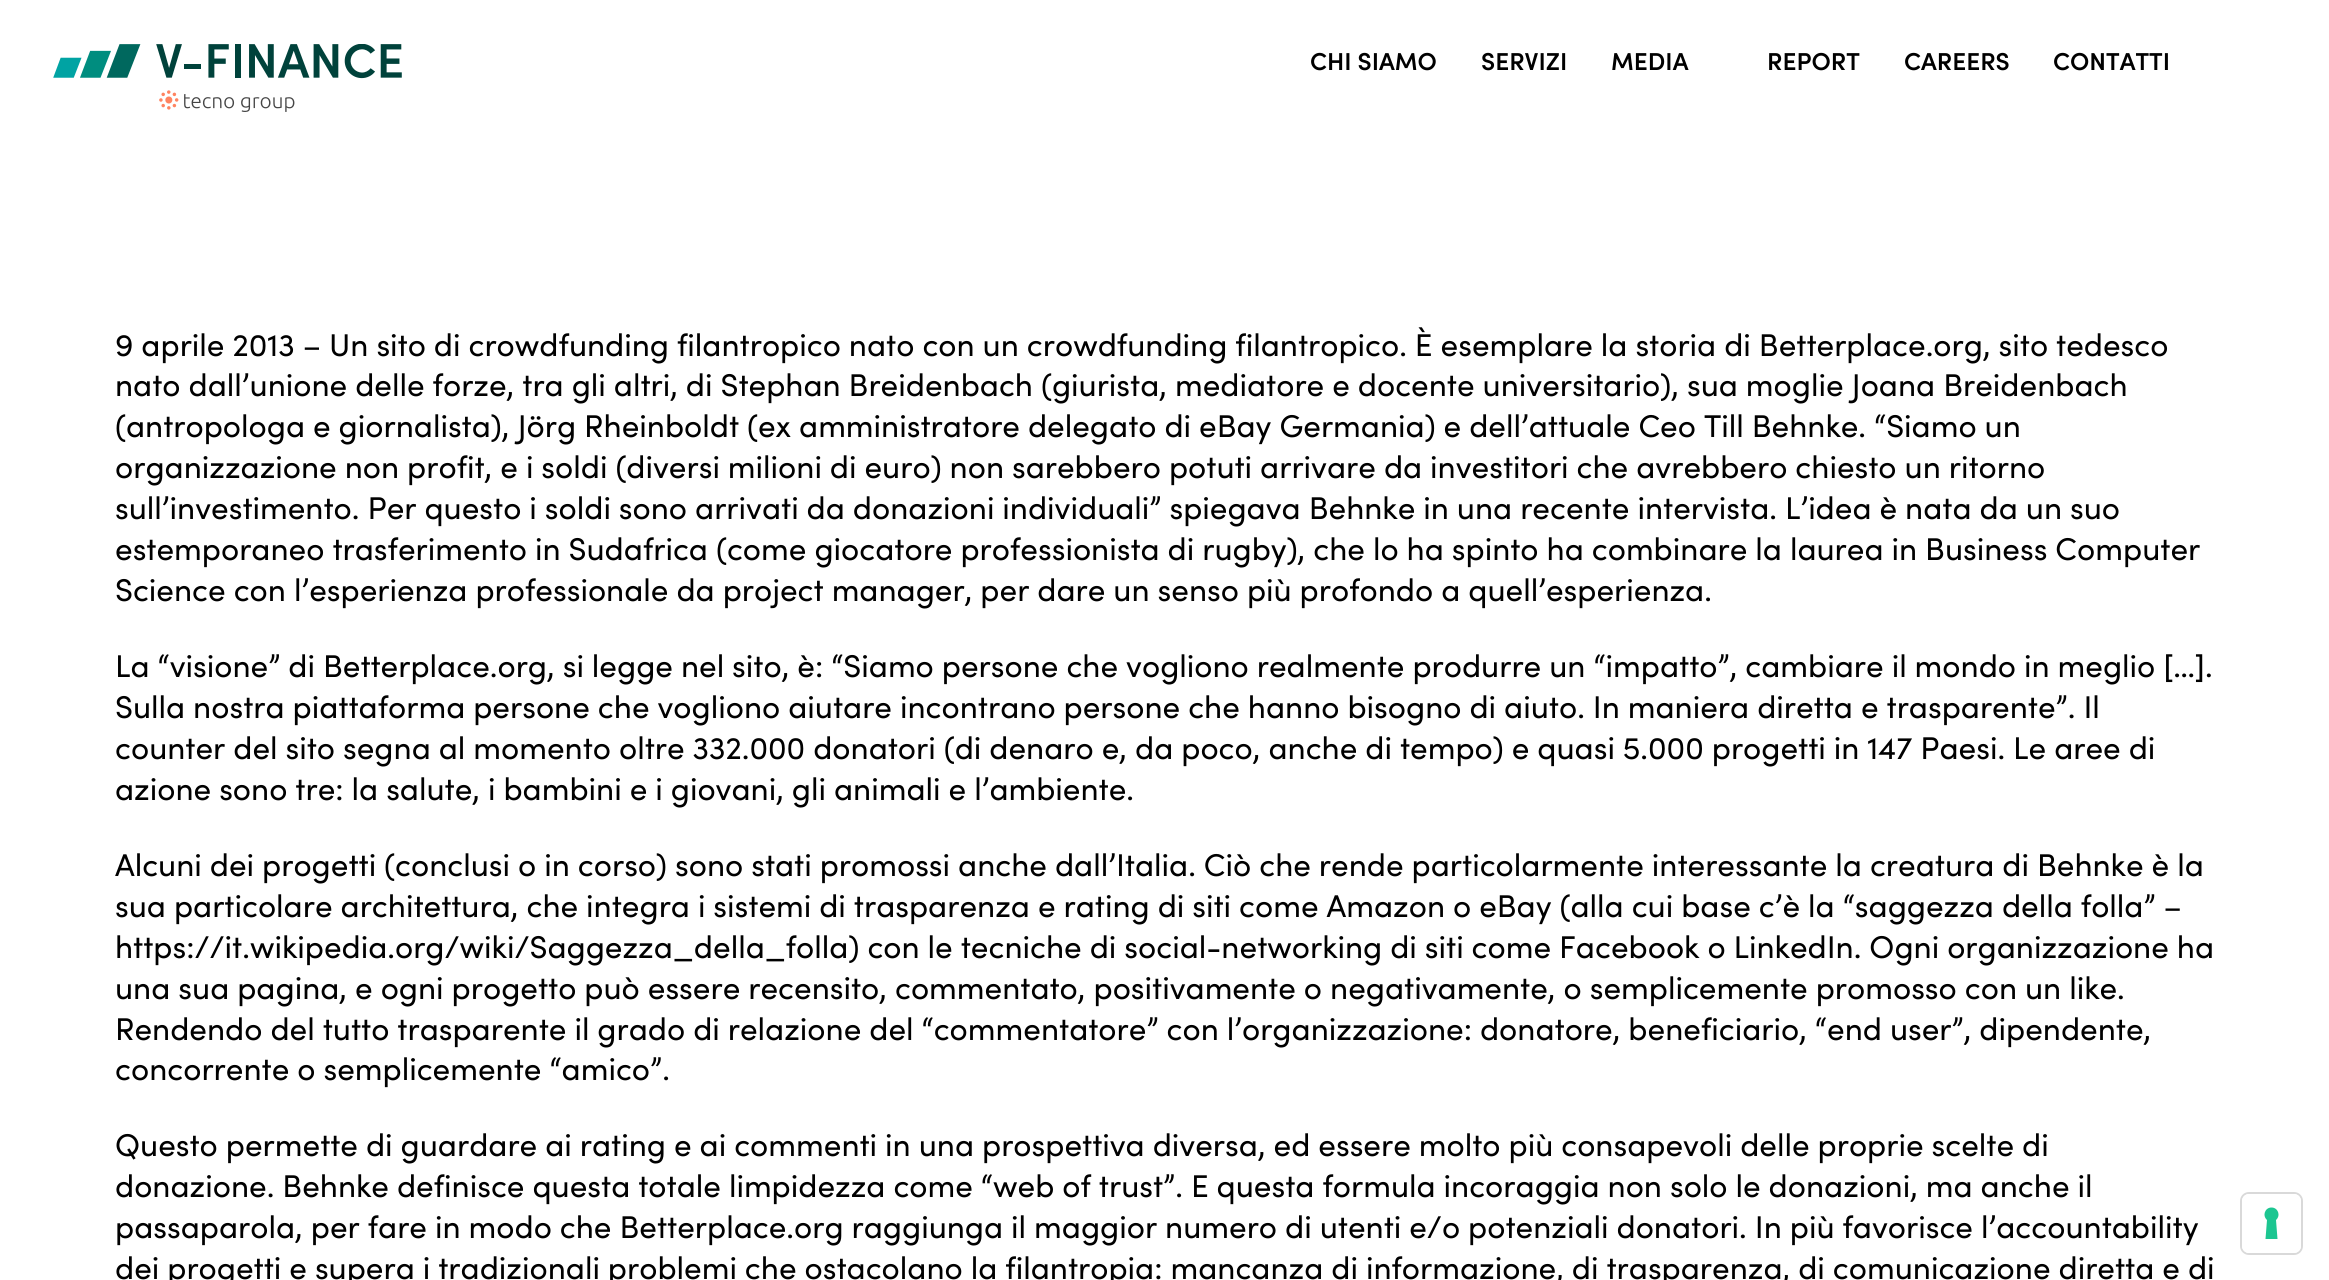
#include <cairo.h>
#include <math.h>
#include <stddef.h>


static void round_rect(cairo_t *cr, double x, double y, double w, double h, double r) {
    cairo_new_sub_path(cr);
    cairo_arc(cr, x + w - r, y + h - r, r, 0, M_PI / 2);
    cairo_arc(cr, x + r, y + h - r, r, M_PI / 2, M_PI);
    cairo_arc(cr, x + r, y + r, r, M_PI, 1.5 * M_PI);
    cairo_arc(cr, x + w - r, y + r, r, 1.5 * M_PI, 2 * M_PI);
    cairo_close_path(cr);
}

static void picture(cairo_t *cr, const char *path, double x, double y, double w, double h) {
    cairo_surface_t *image = cairo_image_surface_create_from_png(path);
    cairo_save(cr);
    cairo_set_source_surface(cr, image, x, y);
    cairo_rectangle(cr, x, y, w, h);
    cairo_fill(cr);
    cairo_restore(cr);
    cairo_surface_destroy(image);
}

int main(void) {
    cairo_surface_t *surface = cairo_image_surface_create(CAIRO_FORMAT_RGB24, 2329, 1280);
    cairo_t *cr = cairo_create(surface);
    cairo_font_options_t *options = cairo_font_options_create();
    cairo_font_options_set_hint_metrics(options, CAIRO_HINT_METRICS_OFF);
    cairo_font_options_set_hint_style(options, CAIRO_HINT_STYLE_NONE);
    cairo_set_font_options(cr, options);
    cairo_set_miter_limit(cr, 4);
    cairo_set_source_rgb(cr, 1, 1, 1);
    cairo_paint(cr);
    picture(cr, "img1.png", 53, 44, 349, 68);
    cairo_select_font_face(cr, "Sofia SemiBold", CAIRO_FONT_SLANT_NORMAL, CAIRO_FONT_WEIGHT_NORMAL);
    cairo_set_font_size(cr, 24.5);
    cairo_set_source_rgb(cr, 0, 0, 0);
    cairo_move_to(cr, 1310, 70);
    cairo_show_text(cr, "CHI SIAMO");
    cairo_move_to(cr, 1481, 70);
    cairo_show_text(cr, "SERVIZI");
    cairo_move_to(cr, 1611, 70);
    cairo_show_text(cr, "MEDIA");
    cairo_move_to(cr, 1767, 70);
    cairo_show_text(cr, "REPORT");
    cairo_move_to(cr, 1904, 70);
    cairo_show_text(cr, "CAREERS");
    cairo_move_to(cr, 2053, 70);
    cairo_show_text(cr, "CONTATTI");
    cairo_select_font_face(cr, "Sofia", CAIRO_FONT_SLANT_NORMAL, CAIRO_FONT_WEIGHT_NORMAL);
    cairo_set_font_size(cr, 31.5);
    cairo_move_to(cr, 115, 356);
    cairo_show_text(cr, "9 aprile 2013 – Un sito di crowdfunding filantropico nato con un crowdfunding filantropico. È esemplare la storia di Betterplace.org, sito tedesco");
    cairo_move_to(cr, 115, 396);
    cairo_show_text(cr, "nato dall’unione delle forze, tra gli altri, di Stephan Breidenbach (giurista, mediatore e docente universitario), sua moglie Joana Breidenbach");
    cairo_move_to(cr, 115, 437);
    cairo_show_text(cr, "(antropologa e giornalista), Jörg Rheinboldt (ex amministratore delegato di eBay Germania) e dell’attuale Ceo Till Behnke. “Siamo un");
    cairo_move_to(cr, 115, 478);
    cairo_show_text(cr, "organizzazione non profit, e i soldi (diversi milioni di euro) non sarebbero potuti arrivare da investitori che avrebbero chiesto un ritorno");
    cairo_move_to(cr, 115, 519);
    cairo_show_text(cr, "sull’investimento. Per questo i soldi sono arrivati da donazioni individuali” spiegava Behnke in una recente intervista. L’idea è nata da un suo");
    cairo_move_to(cr, 115, 560);
    cairo_show_text(cr, "estemporaneo trasferimento in Sudafrica (come giocatore professionista di rugby), che lo ha spinto ha combinare la laurea in Business Computer");
    cairo_move_to(cr, 115, 601);
    cairo_show_text(cr, "Science con l’esperienza professionale da project manager, per dare un senso più profondo a quell’esperienza.");
    cairo_move_to(cr, 115, 677);
    cairo_show_text(cr, "La “visione” di Betterplace.org, si legge nel sito, è: “Siamo persone che vogliono realmente produrre un “impatto”, cambiare il mondo in meglio […].");
    cairo_move_to(cr, 115, 718);
    cairo_show_text(cr, "Sulla nostra piattaforma persone che vogliono aiutare incontrano persone che hanno bisogno di aiuto. In maniera diretta e trasparente”. Il");
    cairo_move_to(cr, 115, 759);
    cairo_show_text(cr, "counter del sito segna al momento oltre 332.000 donatori (di denaro e, da poco, anche di tempo) e quasi 5.000 progetti in 147 Paesi. Le aree di");
    cairo_move_to(cr, 115, 800);
    cairo_show_text(cr, "azione sono tre: la salute, i bambini e i giovani, gli animali e l’ambiente.");
    cairo_move_to(cr, 115, 876);
    cairo_show_text(cr, "Alcuni dei progetti (conclusi o in corso) sono stati promossi anche dall’Italia. Ciò che rende particolarmente interessante la creatura di Behnke è la");
    cairo_move_to(cr, 115, 917);
    cairo_show_text(cr, "sua particolare architettura, che integra i sistemi di trasparenza e rating di siti come Amazon o eBay (alla cui base c’è la “saggezza della folla” –");
    cairo_move_to(cr, 115, 958);
    cairo_show_text(cr, "https://it.wikipedia.org/wiki/Saggezza_della_folla) con le tecniche di social-networking di siti come Facebook o LinkedIn. Ogni organizzazione ha");
    cairo_move_to(cr, 115, 999);
    cairo_show_text(cr, "una sua pagina, e ogni progetto può essere recensito, commentato, positivamente o negativamente, o semplicemente promosso con un like.");
    cairo_move_to(cr, 115, 1040);
    cairo_show_text(cr, "Rendendo del tutto trasparente il grado di relazione del “commentatore” con l’organizzazione: donatore, beneficiario, “end user”, dipendente,");
    cairo_move_to(cr, 115, 1080);
    cairo_show_text(cr, "concorrente o semplicemente “amico”.");
    cairo_move_to(cr, 115, 1156);
    cairo_show_text(cr, "Questo permette di guardare ai rating e ai commenti in una prospettiva diversa, ed essere molto più consapevoli delle proprie scelte di");
    cairo_move_to(cr, 115, 1197);
    cairo_show_text(cr, "donazione. Behnke definisce questa totale limpidezza come “web of trust”. E questa formula incoraggia non solo le donazioni, ma anche il");
    cairo_move_to(cr, 115, 1238);
    cairo_show_text(cr, "passaparola, per fare in modo che Betterplace.org raggiunga il maggior numero di utenti e/o potenziali donatori. In più favorisce l’accountability");
    cairo_move_to(cr, 115, 1279);
    cairo_show_text(cr, "dei progetti e supera i tradizionali problemi che ostacolano la filantropia: mancanza di informazione, di trasparenza, di comunicazione diretta e di");
    round_rect(cr, 2241, 1193, 61, 61, 8);
    cairo_set_source_rgb(cr, 0.851, 0.851, 0.851);
    cairo_stroke(cr);
    cairo_set_source_rgb(cr, 1, 1, 1);
    round_rect(cr, 2242, 1194, 59, 59, 7);
    cairo_fill(cr);
    cairo_set_source_rgb(cr, 0.11, 0.776, 0.569);
    cairo_set_fill_rule(cr, CAIRO_FILL_RULE_EVEN_ODD);
    cairo_new_path(cr);
    cairo_move_to(cr, 2271.5, 1207.5);
    cairo_curve_to(cr, 2278, 1207.5, 2281, 1215.5, 2276, 1220);
    cairo_line_to(cr, 2277.5, 1239);
    cairo_line_to(cr, 2265.5, 1239);
    cairo_line_to(cr, 2267, 1220);
    cairo_curve_to(cr, 2262, 1215.5, 2265, 1207.5, 2271.5, 1207.5);
    cairo_close_path(cr);
    cairo_fill(cr);
    cairo_surface_write_to_png(surface, "page.png");
    cairo_font_options_destroy(options);
    cairo_destroy(cr);
    cairo_surface_destroy(surface);
    return 0;
}
